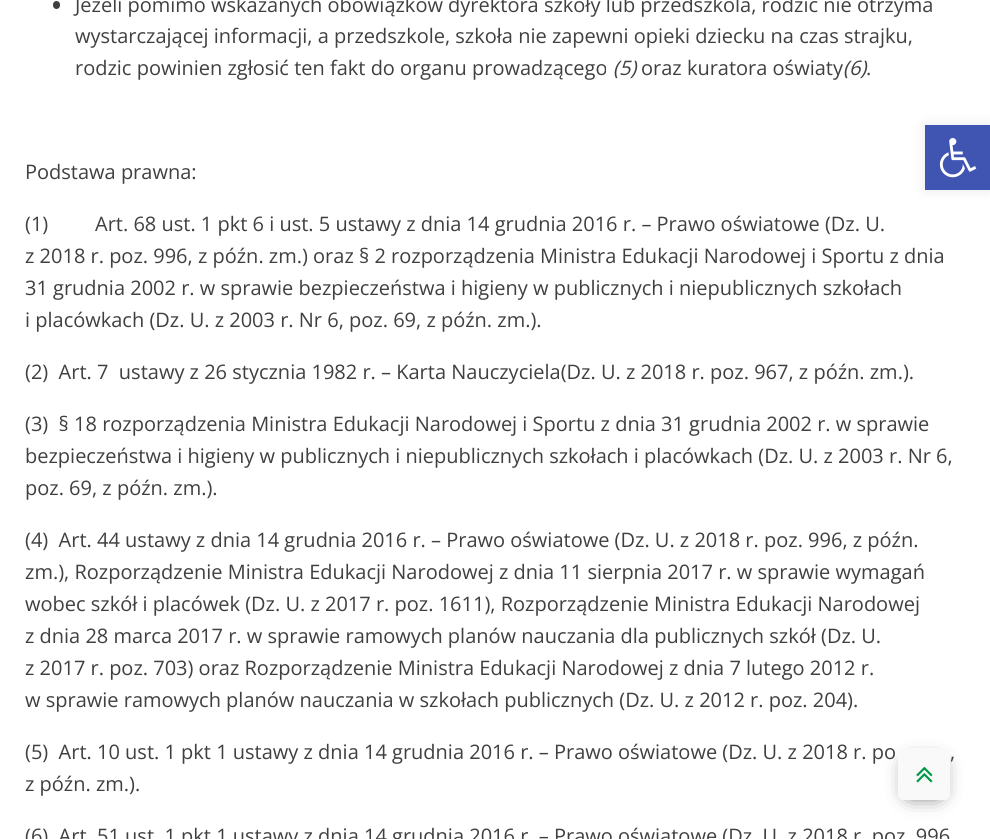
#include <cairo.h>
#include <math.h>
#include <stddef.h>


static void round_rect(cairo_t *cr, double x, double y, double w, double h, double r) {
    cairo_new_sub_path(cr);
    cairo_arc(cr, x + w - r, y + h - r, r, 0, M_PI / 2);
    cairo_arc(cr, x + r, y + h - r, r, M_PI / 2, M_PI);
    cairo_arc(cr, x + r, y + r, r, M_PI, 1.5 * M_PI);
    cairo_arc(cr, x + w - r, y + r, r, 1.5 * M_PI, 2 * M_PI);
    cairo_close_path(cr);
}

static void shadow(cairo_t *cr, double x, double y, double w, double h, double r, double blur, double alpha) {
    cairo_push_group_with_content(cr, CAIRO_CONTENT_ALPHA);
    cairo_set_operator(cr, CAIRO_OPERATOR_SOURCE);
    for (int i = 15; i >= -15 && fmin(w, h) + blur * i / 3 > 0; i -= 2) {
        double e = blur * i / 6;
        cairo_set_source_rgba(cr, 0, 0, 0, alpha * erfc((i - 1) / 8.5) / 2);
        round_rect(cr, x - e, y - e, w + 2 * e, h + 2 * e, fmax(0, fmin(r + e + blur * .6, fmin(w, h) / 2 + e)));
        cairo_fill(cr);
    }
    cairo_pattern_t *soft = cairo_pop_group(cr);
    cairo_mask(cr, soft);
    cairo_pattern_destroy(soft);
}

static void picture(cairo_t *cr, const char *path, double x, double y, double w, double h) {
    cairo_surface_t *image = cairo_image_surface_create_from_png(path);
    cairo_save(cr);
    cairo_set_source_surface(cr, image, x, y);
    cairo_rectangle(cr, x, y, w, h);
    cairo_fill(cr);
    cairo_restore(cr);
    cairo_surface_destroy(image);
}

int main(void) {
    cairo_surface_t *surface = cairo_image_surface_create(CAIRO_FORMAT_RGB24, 990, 839);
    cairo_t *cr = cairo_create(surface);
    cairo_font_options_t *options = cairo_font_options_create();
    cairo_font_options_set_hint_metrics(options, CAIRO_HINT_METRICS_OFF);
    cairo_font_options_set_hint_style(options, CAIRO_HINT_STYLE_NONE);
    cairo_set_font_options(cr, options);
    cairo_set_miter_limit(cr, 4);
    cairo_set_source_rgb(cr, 1, 1, 1);
    cairo_paint(cr);
    cairo_set_source_rgb(cr, 0.251, 0.251, 0.251);
    round_rect(cr, 53, 1, 7, 8, 3.5);
    cairo_fill(cr);
    cairo_select_font_face(cr, "Open Sans", CAIRO_FONT_SLANT_NORMAL, CAIRO_FONT_WEIGHT_NORMAL);
    cairo_set_font_size(cr, 20);
    cairo_move_to(cr, 75, 12);
    cairo_show_text(cr, "Jeżeli pomimo wskazanych obowiązków dyrektora szkoły lub przedszkola, rodzic nie otrzyma");
    cairo_move_to(cr, 75, 43);
    cairo_show_text(cr, "wystarczającej informacji, a przedszkole, szkoła nie zapewni opieki dziecku na czas strajku,");
    cairo_move_to(cr, 75, 75);
    cairo_show_text(cr, "rodzic powinien zgłosić ten fakt do organu prowadzącego");
    cairo_select_font_face(cr, "Open Sans", CAIRO_FONT_SLANT_ITALIC, CAIRO_FONT_WEIGHT_NORMAL);
    cairo_move_to(cr, 613, 75);
    cairo_show_text(cr, "(5)");
    cairo_select_font_face(cr, "Open Sans", CAIRO_FONT_SLANT_NORMAL, CAIRO_FONT_WEIGHT_NORMAL);
    cairo_move_to(cr, 641, 75);
    cairo_show_text(cr, "oraz kuratora oświaty");
    cairo_select_font_face(cr, "Open Sans", CAIRO_FONT_SLANT_ITALIC, CAIRO_FONT_WEIGHT_NORMAL);
    cairo_move_to(cr, 843, 75);
    cairo_show_text(cr, "(6)");
    cairo_select_font_face(cr, "Open Sans", CAIRO_FONT_SLANT_NORMAL, CAIRO_FONT_WEIGHT_NORMAL);
    cairo_move_to(cr, 866, 75);
    cairo_show_text(cr, ".");
    cairo_move_to(cr, 25, 179);
    cairo_show_text(cr, "Podstawa prawna:");
    cairo_move_to(cr, 25, 231);
    cairo_show_text(cr, "(1)         Art. 68 ust. 1 pkt 6 i ust. 5 ustawy z dnia 14 grudnia 2016 r. – Prawo oświatowe (Dz. U.");
    cairo_move_to(cr, 25, 263);
    cairo_show_text(cr, "z 2018 r. poz. 996, z późn. zm.) oraz § 2 rozporządzenia Ministra Edukacji Narodowej i Sportu z dnia");
    cairo_move_to(cr, 25, 295);
    cairo_show_text(cr, "31 grudnia 2002 r. w sprawie bezpieczeństwa i higieny w publicznych i niepublicznych szkołach");
    cairo_move_to(cr, 25, 327);
    cairo_show_text(cr, "i placówkach (Dz. U. z 2003 r. Nr 6, poz. 69, z późn. zm.).");
    cairo_move_to(cr, 25, 379);
    cairo_show_text(cr, "(2)  Art. 7  ustawy z 26 stycznia 1982 r. – Karta Nauczyciela(Dz. U. z 2018 r. poz. 967, z późn. zm.).");
    cairo_move_to(cr, 25, 431);
    cairo_show_text(cr, "(3)  § 18 rozporządzenia Ministra Edukacji Narodowej i Sportu z dnia 31 grudnia 2002 r. w sprawie");
    cairo_move_to(cr, 25, 463);
    cairo_show_text(cr, "bezpieczeństwa i higieny w publicznych i niepublicznych szkołach i placówkach (Dz. U. z 2003 r. Nr 6,");
    cairo_move_to(cr, 25, 495);
    cairo_show_text(cr, "poz. 69, z późn. zm.).");
    cairo_move_to(cr, 25, 547);
    cairo_show_text(cr, "(4)  Art. 44 ustawy z dnia 14 grudnia 2016 r. – Prawo oświatowe (Dz. U. z 2018 r. poz. 996, z późn.");
    cairo_move_to(cr, 25, 579);
    cairo_show_text(cr, "zm.), Rozporządzenie Ministra Edukacji Narodowej z dnia 11 sierpnia 2017 r. w sprawie wymagań");
    cairo_move_to(cr, 25, 611);
    cairo_show_text(cr, "wobec szkół i placówek (Dz. U. z 2017 r. poz. 1611), Rozporządzenie Ministra Edukacji Narodowej");
    cairo_move_to(cr, 25, 643);
    cairo_show_text(cr, "z dnia 28 marca 2017 r. w sprawie ramowych planów nauczania dla publicznych szkół (Dz. U.");
    cairo_move_to(cr, 25, 675);
    cairo_show_text(cr, "z 2017 r. poz. 703) oraz Rozporządzenie Ministra Edukacji Narodowej z dnia 7 lutego 2012 r.");
    cairo_move_to(cr, 25, 707);
    cairo_show_text(cr, "w sprawie ramowych planów nauczania w szkołach publicznych (Dz. U. z 2012 r. poz. 204).");
    cairo_move_to(cr, 25, 759);
    cairo_show_text(cr, "(5)  Art. 10 ust. 1 pkt 1 ustawy z dnia 14 grudnia 2016 r. – Prawo oświatowe (Dz. U. z 2018 r. po");
    cairo_move_to(cr, 950, 759);
    cairo_show_text(cr, ",");
    cairo_move_to(cr, 25, 791);
    cairo_show_text(cr, "z późn. zm.).");
    cairo_move_to(cr, 25, 843);
    cairo_show_text(cr, "(6)  Art. 51 ust. 1 pkt 1 ustawy z dnia 14 grudnia 2016 r. – Prawo oświatowe (Dz. U. z 2018 r. poz. 996");
    cairo_set_source_rgb(cr, 0, 0, 0);
    shadow(cr, 925, 125, 65, 65, 0, 6, 0.1);
    cairo_set_source_rgb(cr, 0.251, 0.329, 0.698);
    cairo_rectangle(cr, 925, 125, 65, 65);
    cairo_fill(cr);
    picture(cr, "img1.png", 939, 138, 38, 40);
    cairo_set_source_rgb(cr, 0.118, 0.118, 0.118);
    shadow(cr, 910, 765, 28, 28, 0, 10.5, 1);
    cairo_set_source_rgb(cr, 0.976, 0.976, 0.98);
    round_rect(cr, 898, 748, 52, 52, 5);
    cairo_fill(cr);
    picture(cr, "img2.png", 916, 766, 17, 17);
    cairo_surface_write_to_png(surface, "page.png");
    cairo_font_options_destroy(options);
    cairo_destroy(cr);
    cairo_surface_destroy(surface);
    return 0;
}
